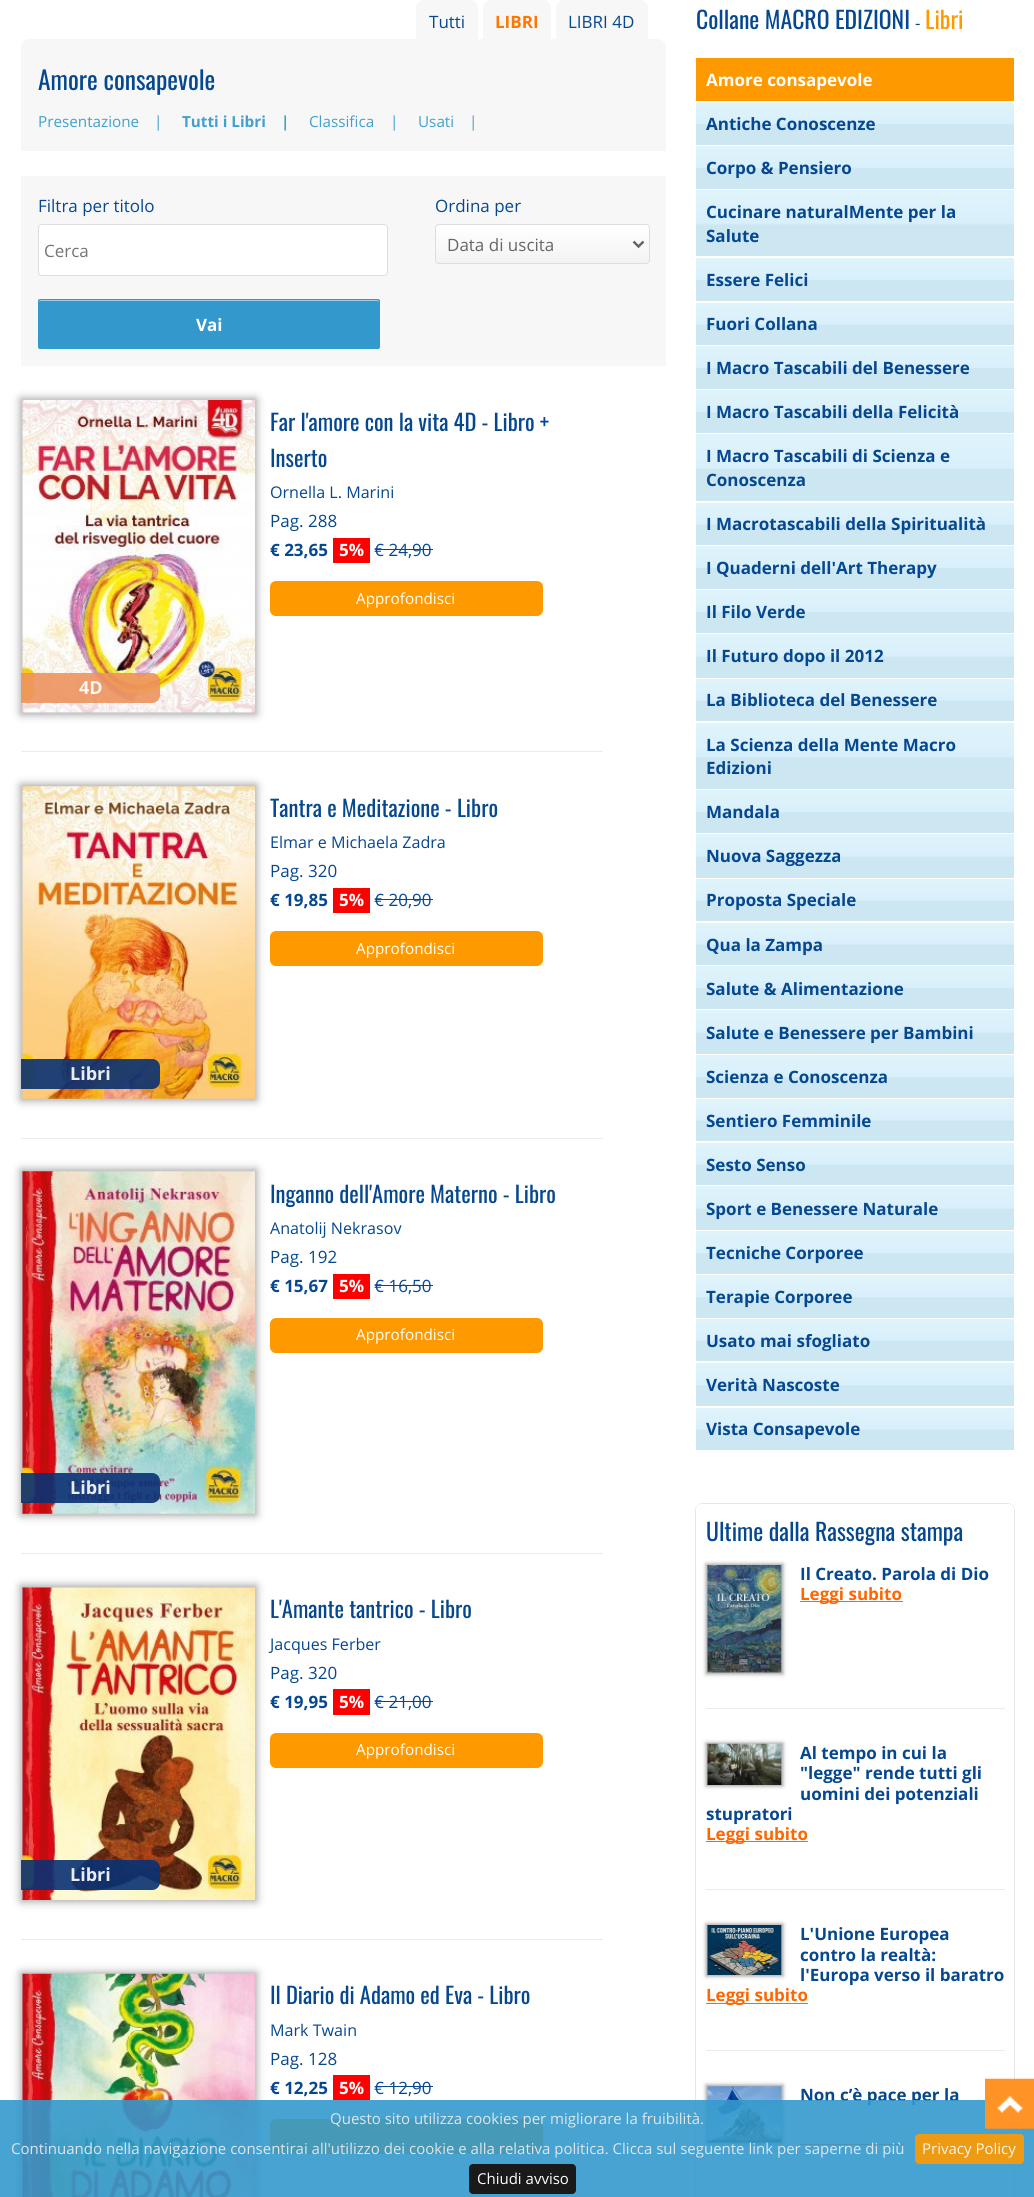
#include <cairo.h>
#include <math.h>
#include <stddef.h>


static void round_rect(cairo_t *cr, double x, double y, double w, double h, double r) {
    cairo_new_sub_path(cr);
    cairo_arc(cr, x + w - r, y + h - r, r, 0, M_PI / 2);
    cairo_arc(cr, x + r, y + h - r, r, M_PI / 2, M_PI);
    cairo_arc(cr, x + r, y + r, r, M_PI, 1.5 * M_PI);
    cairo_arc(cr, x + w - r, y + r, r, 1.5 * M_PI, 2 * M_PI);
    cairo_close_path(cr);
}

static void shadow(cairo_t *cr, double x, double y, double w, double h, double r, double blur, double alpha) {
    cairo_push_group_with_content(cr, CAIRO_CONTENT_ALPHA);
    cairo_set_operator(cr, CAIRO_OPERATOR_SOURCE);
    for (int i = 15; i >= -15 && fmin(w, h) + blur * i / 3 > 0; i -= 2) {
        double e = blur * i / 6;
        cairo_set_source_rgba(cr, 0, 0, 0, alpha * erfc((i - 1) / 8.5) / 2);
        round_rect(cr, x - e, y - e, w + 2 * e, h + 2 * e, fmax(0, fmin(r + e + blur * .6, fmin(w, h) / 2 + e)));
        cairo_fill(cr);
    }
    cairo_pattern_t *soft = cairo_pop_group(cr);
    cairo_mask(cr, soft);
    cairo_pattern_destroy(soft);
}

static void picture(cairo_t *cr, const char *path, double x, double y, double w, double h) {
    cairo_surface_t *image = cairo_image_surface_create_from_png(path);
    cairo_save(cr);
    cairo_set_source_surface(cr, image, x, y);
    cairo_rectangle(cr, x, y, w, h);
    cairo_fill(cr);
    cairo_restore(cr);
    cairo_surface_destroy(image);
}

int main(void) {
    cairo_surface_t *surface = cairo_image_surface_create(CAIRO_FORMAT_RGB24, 1034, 2197);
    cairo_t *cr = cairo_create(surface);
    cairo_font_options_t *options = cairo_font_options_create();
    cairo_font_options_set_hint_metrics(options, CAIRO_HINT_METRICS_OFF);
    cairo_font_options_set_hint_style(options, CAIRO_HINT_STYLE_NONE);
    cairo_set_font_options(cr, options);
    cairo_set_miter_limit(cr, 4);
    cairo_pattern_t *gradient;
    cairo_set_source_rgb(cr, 1, 1, 1);
    cairo_paint(cr);
    cairo_set_source_rgb(cr, 0.965, 0.965, 0.965);
    cairo_new_path(cr);
    cairo_move_to(cr, 30, 39);
    cairo_line_to(cr, 657, 39);
    cairo_curve_to(cr, 662, 39, 666, 43, 666, 48);
    cairo_line_to(cr, 666, 151);
    cairo_line_to(cr, 21, 151);
    cairo_line_to(cr, 21, 48);
    cairo_curve_to(cr, 21, 43, 25, 39, 30, 39);
    cairo_close_path(cr);
    cairo_fill(cr);
    cairo_new_path(cr);
    cairo_move_to(cr, 424, 0);
    cairo_line_to(cr, 470, 0);
    cairo_curve_to(cr, 474.5, 0, 478, 3.5, 478, 8);
    cairo_line_to(cr, 478, 43);
    cairo_line_to(cr, 416, 43);
    cairo_line_to(cr, 416, 8);
    cairo_curve_to(cr, 416, 3.5, 419.5, 0, 424, 0);
    cairo_close_path(cr);
    cairo_fill(cr);
    cairo_select_font_face(cr, "Open Sans", CAIRO_FONT_SLANT_NORMAL, CAIRO_FONT_WEIGHT_NORMAL);
    cairo_set_font_size(cr, 17);
    cairo_set_source_rgb(cr, 0.024, 0.282, 0.565);
    cairo_move_to(cr, 429, 28);
    cairo_show_text(cr, "Tutti");
    cairo_set_source_rgb(cr, 0.965, 0.965, 0.965);
    cairo_new_path(cr);
    cairo_move_to(cr, 491, 0);
    cairo_line_to(cr, 543, 0);
    cairo_curve_to(cr, 547.5, 0, 551, 3.5, 551, 8);
    cairo_line_to(cr, 551, 43);
    cairo_line_to(cr, 483, 43);
    cairo_line_to(cr, 483, 8);
    cairo_curve_to(cr, 483, 3.5, 486.5, 0, 491, 0);
    cairo_close_path(cr);
    cairo_fill(cr);
    cairo_select_font_face(cr, "Open Sans", CAIRO_FONT_SLANT_NORMAL, CAIRO_FONT_WEIGHT_BOLD);
    cairo_set_source_rgb(cr, 1, 0.467, 0);
    cairo_move_to(cr, 495, 28);
    cairo_show_text(cr, "LIBRI");
    cairo_set_source_rgb(cr, 0.965, 0.965, 0.965);
    cairo_new_path(cr);
    cairo_move_to(cr, 564, 0);
    cairo_line_to(cr, 640, 0);
    cairo_curve_to(cr, 644.5, 0, 648, 3.5, 648, 8);
    cairo_line_to(cr, 648, 43);
    cairo_line_to(cr, 556, 43);
    cairo_line_to(cr, 556, 8);
    cairo_curve_to(cr, 556, 3.5, 559.5, 0, 564, 0);
    cairo_close_path(cr);
    cairo_fill(cr);
    cairo_select_font_face(cr, "Open Sans", CAIRO_FONT_SLANT_NORMAL, CAIRO_FONT_WEIGHT_NORMAL);
    cairo_set_source_rgb(cr, 0.024, 0.282, 0.565);
    cairo_move_to(cr, 568, 28);
    cairo_show_text(cr, "LIBRI 4D");
    cairo_select_font_face(cr, "Oswald", CAIRO_FONT_SLANT_NORMAL, CAIRO_FONT_WEIGHT_NORMAL);
    cairo_set_font_size(cr, 25.5);
    cairo_move_to(cr, 38, 90);
    cairo_show_text(cr, "Amore consapevole");
    cairo_select_font_face(cr, "Open Sans", CAIRO_FONT_SLANT_NORMAL, CAIRO_FONT_WEIGHT_NORMAL);
    cairo_set_font_size(cr, 15.25);
    cairo_set_source_rgb(cr, 0.255, 0.631, 0.796);
    cairo_move_to(cr, 38, 127);
    cairo_show_text(cr, "Presentazione");
    cairo_move_to(cr, 154, 127);
    cairo_show_text(cr, "|");
    cairo_select_font_face(cr, "Open Sans", CAIRO_FONT_SLANT_NORMAL, CAIRO_FONT_WEIGHT_BOLD);
    cairo_move_to(cr, 182, 127);
    cairo_show_text(cr, "Tutti i Libri");
    cairo_move_to(cr, 281, 127);
    cairo_show_text(cr, "|");
    cairo_select_font_face(cr, "Open Sans", CAIRO_FONT_SLANT_NORMAL, CAIRO_FONT_WEIGHT_NORMAL);
    cairo_move_to(cr, 309, 127);
    cairo_show_text(cr, "Classifica");
    cairo_move_to(cr, 390, 127);
    cairo_show_text(cr, "|");
    cairo_move_to(cr, 418, 127);
    cairo_show_text(cr, "Usati");
    cairo_move_to(cr, 469, 127);
    cairo_show_text(cr, "|");
    cairo_set_source_rgb(cr, 0.965, 0.965, 0.965);
    cairo_rectangle(cr, 21, 176, 645, 190);
    cairo_fill(cr);
    cairo_set_font_size(cr, 17);
    cairo_set_source_rgb(cr, 0.024, 0.282, 0.565);
    cairo_move_to(cr, 38, 212);
    cairo_show_text(cr, "Filtra per titolo");
    cairo_set_source_rgb(cr, 1, 1, 1);
    round_rect(cr, 38.5, 224.5, 349, 51, 3.5);
    cairo_fill_preserve(cr);
    cairo_set_source_rgb(cr, 0.867, 0.867, 0.867);
    cairo_set_line_width(cr, 1);
    cairo_stroke(cr);
    cairo_set_source_rgb(cr, 0.459, 0.459, 0.459);
    cairo_move_to(cr, 44, 257);
    cairo_show_text(cr, "Cerca");
    cairo_set_source_rgb(cr, 0.024, 0.282, 0.565);
    cairo_move_to(cr, 435, 212);
    cairo_show_text(cr, "Ordina per");
    cairo_save(cr);
    round_rect(cr, 435, 224, 215, 40, 4);
    cairo_clip(cr);
    gradient = cairo_pattern_create_linear(543, 225, 543, 263);
    cairo_pattern_add_color_stop_rgba(gradient, 0, 1, 1, 1, 1);
    cairo_pattern_add_color_stop_rgba(gradient, 1, 0.953, 0.953, 0.953, 1);
    cairo_set_source(cr, gradient);
    cairo_pattern_destroy(gradient);
    cairo_rectangle(cr, 435, 225, 215, 38);
    cairo_fill(cr);
    cairo_restore(cr);
    round_rect(cr, 435.5, 224.5, 214, 39, 3.5);
    cairo_set_source_rgb(cr, 0.867, 0.867, 0.867);
    cairo_stroke(cr);
    cairo_new_path(cr);
    cairo_move_to(cr, 633.5, 241.5);
    cairo_line_to(cr, 638.5, 246.5);
    cairo_line_to(cr, 643.5, 241.5);
    cairo_set_source_rgb(cr, 0.4, 0.4, 0.4);
    cairo_set_line_width(cr, 2.5);
    cairo_stroke(cr);
    cairo_move_to(cr, 447, 251);
    cairo_show_text(cr, "Data di uscita");
    cairo_set_source_rgb(cr, 0.2, 0.6, 0.8);
    round_rect(cr, 38, 299, 342, 50, 2.5);
    cairo_fill(cr);
    cairo_set_source_rgb(cr, 0.6, 0.8, 0.902);
    cairo_new_path(cr);
    cairo_move_to(cr, 40, 301);
    cairo_line_to(cr, 378, 301);
    cairo_line_to(cr, 379, 302);
    cairo_line_to(cr, 379, 301);
    cairo_line_to(cr, 378, 300);
    cairo_line_to(cr, 40, 300);
    cairo_curve_to(cr, 39, 300, 39, 301, 39, 302);
    cairo_close_path(cr);
    cairo_fill(cr);
    round_rect(cr, 38.5, 299.5, 341, 49, 2);
    cairo_set_source_rgb(cr, 0.2, 0.6, 0.8);
    cairo_set_line_width(cr, 1);
    cairo_stroke(cr);
    cairo_select_font_face(cr, "Open Sans", CAIRO_FONT_SLANT_NORMAL, CAIRO_FONT_WEIGHT_BOLD);
    cairo_set_source_rgb(cr, 1, 1, 1);
    cairo_move_to(cr, 196, 331);
    cairo_show_text(cr, "Vai");
    cairo_set_source_rgb(cr, 0.918, 0.918, 0.918);
    cairo_rectangle(cr, 21, 751, 582, 1);
    cairo_fill(cr);
    cairo_select_font_face(cr, "Oswald", CAIRO_FONT_SLANT_NORMAL, CAIRO_FONT_WEIGHT_NORMAL);
    cairo_set_font_size(cr, 22.6);
    cairo_set_source_rgb(cr, 0.024, 0.282, 0.565);
    cairo_move_to(cr, 270, 431);
    cairo_show_text(cr, "Far l'amore con la vita 4D - Libro +");
    cairo_move_to(cr, 270, 467);
    cairo_show_text(cr, "Inserto");
    cairo_select_font_face(cr, "Open Sans", CAIRO_FONT_SLANT_NORMAL, CAIRO_FONT_WEIGHT_NORMAL);
    cairo_set_font_size(cr, 16.1);
    cairo_move_to(cr, 270, 498);
    cairo_show_text(cr, "Ornella L. Marini");
    cairo_set_font_size(cr, 17);
    cairo_move_to(cr, 270, 527);
    cairo_show_text(cr, "Pag. 288");
    cairo_select_font_face(cr, "Open Sans", CAIRO_FONT_SLANT_NORMAL, CAIRO_FONT_WEIGHT_BOLD);
    cairo_move_to(cr, 270, 556);
    cairo_show_text(cr, "€ 23,65");
    cairo_set_source_rgb(cr, 1, 0, 0);
    cairo_rectangle(cr, 333, 538, 37, 25);
    cairo_fill(cr);
    cairo_set_source_rgb(cr, 1, 1, 1);
    cairo_move_to(cr, 339, 556);
    cairo_show_text(cr, "5%");
    cairo_select_font_face(cr, "Open Sans", CAIRO_FONT_SLANT_NORMAL, CAIRO_FONT_WEIGHT_NORMAL);
    cairo_set_source_rgb(cr, 0.024, 0.282, 0.565);
    cairo_move_to(cr, 374, 556);
    cairo_show_text(cr, "€ 24,90");
    cairo_rectangle(cr, 375, 549, 58, 1);
    cairo_fill(cr);
    cairo_set_source_rgb(cr, 1, 0.6, 0);
    round_rect(cr, 270, 581, 273, 35, 6);
    cairo_fill(cr);
    cairo_set_font_size(cr, 15.25);
    cairo_set_source_rgb(cr, 1, 1, 1);
    cairo_move_to(cr, 356, 604);
    cairo_show_text(cr, "Approfondisci");
    cairo_set_source_rgb(cr, 0.6, 0.6, 0.6);
    shadow(cr, 21, 399, 235, 315, 0, 4.5, 1);
    picture(cr, "img1.png", 22, 400, 233, 313);
    cairo_set_source_rgba(cr, 0.933, 0.58, 0.376, 0.9);
    cairo_new_path(cr);
    cairo_move_to(cr, 21, 673);
    cairo_line_to(cr, 152, 673);
    cairo_curve_to(cr, 156.5, 673, 160, 676.5, 160, 681);
    cairo_line_to(cr, 160, 695);
    cairo_curve_to(cr, 160, 699.5, 156.5, 703, 152, 703);
    cairo_line_to(cr, 21, 703);
    cairo_close_path(cr);
    cairo_fill(cr);
    cairo_select_font_face(cr, "Open Sans", CAIRO_FONT_SLANT_NORMAL, CAIRO_FONT_WEIGHT_BOLD);
    cairo_set_font_size(cr, 18);
    cairo_set_source_rgb(cr, 0.992, 0.961, 0.941);
    cairo_move_to(cr, 79, 694);
    cairo_show_text(cr, "4D");
    cairo_set_source_rgb(cr, 0.918, 0.918, 0.918);
    cairo_rectangle(cr, 21, 1138, 582, 1);
    cairo_fill(cr);
    cairo_select_font_face(cr, "Oswald", CAIRO_FONT_SLANT_NORMAL, CAIRO_FONT_WEIGHT_NORMAL);
    cairo_set_font_size(cr, 22.6);
    cairo_set_source_rgb(cr, 0.024, 0.282, 0.565);
    cairo_move_to(cr, 270, 817);
    cairo_show_text(cr, "Tantra e Meditazione - Libro");
    cairo_select_font_face(cr, "Open Sans", CAIRO_FONT_SLANT_NORMAL, CAIRO_FONT_WEIGHT_NORMAL);
    cairo_set_font_size(cr, 16.1);
    cairo_move_to(cr, 270, 848);
    cairo_show_text(cr, "Elmar e Michaela Zadra");
    cairo_set_font_size(cr, 17);
    cairo_move_to(cr, 270, 877);
    cairo_show_text(cr, "Pag. 320");
    cairo_select_font_face(cr, "Open Sans", CAIRO_FONT_SLANT_NORMAL, CAIRO_FONT_WEIGHT_BOLD);
    cairo_move_to(cr, 270, 906);
    cairo_show_text(cr, "€ 19,85");
    cairo_set_source_rgb(cr, 1, 0, 0);
    cairo_rectangle(cr, 333, 888, 37, 25);
    cairo_fill(cr);
    cairo_set_source_rgb(cr, 1, 1, 1);
    cairo_move_to(cr, 339, 906);
    cairo_show_text(cr, "5%");
    cairo_select_font_face(cr, "Open Sans", CAIRO_FONT_SLANT_NORMAL, CAIRO_FONT_WEIGHT_NORMAL);
    cairo_set_source_rgb(cr, 0.024, 0.282, 0.565);
    cairo_move_to(cr, 374, 906);
    cairo_show_text(cr, "€ 20,90");
    cairo_rectangle(cr, 375, 899, 58, 1);
    cairo_fill(cr);
    cairo_set_source_rgb(cr, 1, 0.6, 0);
    round_rect(cr, 270, 931, 273, 35, 6);
    cairo_fill(cr);
    cairo_set_font_size(cr, 15.25);
    cairo_set_source_rgb(cr, 1, 1, 1);
    cairo_move_to(cr, 356, 954);
    cairo_show_text(cr, "Approfondisci");
    cairo_set_source_rgb(cr, 0.6, 0.6, 0.6);
    shadow(cr, 21, 785, 235, 315, 0, 4.5, 1);
    picture(cr, "img2.png", 22, 786, 233, 313);
    cairo_set_source_rgba(cr, 0.039, 0.192, 0.455, 0.9);
    cairo_new_path(cr);
    cairo_move_to(cr, 21, 1059);
    cairo_line_to(cr, 152, 1059);
    cairo_curve_to(cr, 156.5, 1059, 160, 1062.5, 160, 1067);
    cairo_line_to(cr, 160, 1081);
    cairo_curve_to(cr, 160, 1085.5, 156.5, 1089, 152, 1089);
    cairo_line_to(cr, 21, 1089);
    cairo_close_path(cr);
    cairo_fill(cr);
    cairo_select_font_face(cr, "Open Sans", CAIRO_FONT_SLANT_NORMAL, CAIRO_FONT_WEIGHT_BOLD);
    cairo_set_font_size(cr, 18);
    cairo_set_source_rgb(cr, 0.914, 0.922, 0.941);
    cairo_move_to(cr, 70, 1080);
    cairo_show_text(cr, "Libri");
    cairo_set_source_rgb(cr, 0.918, 0.918, 0.918);
    cairo_rectangle(cr, 21, 1553, 582, 1);
    cairo_fill(cr);
    cairo_select_font_face(cr, "Oswald", CAIRO_FONT_SLANT_NORMAL, CAIRO_FONT_WEIGHT_NORMAL);
    cairo_set_font_size(cr, 22.6);
    cairo_set_source_rgb(cr, 0.024, 0.282, 0.565);
    cairo_move_to(cr, 270, 1203);
    cairo_show_text(cr, "Inganno dell'Amore Materno - Libro");
    cairo_select_font_face(cr, "Open Sans", CAIRO_FONT_SLANT_NORMAL, CAIRO_FONT_WEIGHT_NORMAL);
    cairo_set_font_size(cr, 16.1);
    cairo_move_to(cr, 270, 1234);
    cairo_show_text(cr, "Anatolij Nekrasov");
    cairo_set_font_size(cr, 17);
    cairo_move_to(cr, 270, 1263);
    cairo_show_text(cr, "Pag. 192");
    cairo_select_font_face(cr, "Open Sans", CAIRO_FONT_SLANT_NORMAL, CAIRO_FONT_WEIGHT_BOLD);
    cairo_move_to(cr, 270, 1292);
    cairo_show_text(cr, "€ 15,67");
    cairo_set_source_rgb(cr, 1, 0, 0);
    cairo_rectangle(cr, 333, 1274, 37, 25);
    cairo_fill(cr);
    cairo_set_source_rgb(cr, 1, 1, 1);
    cairo_move_to(cr, 339, 1292);
    cairo_show_text(cr, "5%");
    cairo_select_font_face(cr, "Open Sans", CAIRO_FONT_SLANT_NORMAL, CAIRO_FONT_WEIGHT_NORMAL);
    cairo_set_source_rgb(cr, 0.024, 0.282, 0.565);
    cairo_move_to(cr, 374, 1292);
    cairo_show_text(cr, "€ 16,50");
    cairo_rectangle(cr, 375, 1285, 58, 1);
    cairo_fill(cr);
    cairo_set_source_rgb(cr, 1, 0.6, 0);
    round_rect(cr, 270, 1318, 273, 35, 6);
    cairo_fill(cr);
    cairo_set_font_size(cr, 15.25);
    cairo_set_source_rgb(cr, 1, 1, 1);
    cairo_move_to(cr, 356, 1340);
    cairo_show_text(cr, "Approfondisci");
    cairo_set_source_rgb(cr, 0.6, 0.6, 0.6);
    shadow(cr, 21, 1170, 235, 345, 0, 4.5, 1);
    picture(cr, "img3.png", 22, 1171, 233, 343);
    cairo_set_source_rgba(cr, 0.039, 0.192, 0.455, 0.9);
    cairo_new_path(cr);
    cairo_move_to(cr, 21, 1473);
    cairo_line_to(cr, 152, 1473);
    cairo_curve_to(cr, 156.5, 1473, 160, 1476.5, 160, 1481);
    cairo_line_to(cr, 160, 1495);
    cairo_curve_to(cr, 160, 1499.5, 156.5, 1503, 152, 1503);
    cairo_line_to(cr, 21, 1503);
    cairo_close_path(cr);
    cairo_fill(cr);
    cairo_select_font_face(cr, "Open Sans", CAIRO_FONT_SLANT_NORMAL, CAIRO_FONT_WEIGHT_BOLD);
    cairo_set_font_size(cr, 18);
    cairo_set_source_rgb(cr, 0.914, 0.922, 0.941);
    cairo_move_to(cr, 70, 1494);
    cairo_show_text(cr, "Libri");
    cairo_set_source_rgb(cr, 0.918, 0.918, 0.918);
    cairo_rectangle(cr, 21, 1939, 582, 1);
    cairo_fill(cr);
    cairo_select_font_face(cr, "Oswald", CAIRO_FONT_SLANT_NORMAL, CAIRO_FONT_WEIGHT_NORMAL);
    cairo_set_font_size(cr, 22.6);
    cairo_set_source_rgb(cr, 0.024, 0.282, 0.565);
    cairo_move_to(cr, 270, 1618);
    cairo_show_text(cr, "L'Amante tantrico - Libro");
    cairo_select_font_face(cr, "Open Sans", CAIRO_FONT_SLANT_NORMAL, CAIRO_FONT_WEIGHT_NORMAL);
    cairo_set_font_size(cr, 16.1);
    cairo_move_to(cr, 270, 1650);
    cairo_show_text(cr, "Jacques Ferber");
    cairo_set_font_size(cr, 17);
    cairo_move_to(cr, 270, 1679);
    cairo_show_text(cr, "Pag. 320");
    cairo_select_font_face(cr, "Open Sans", CAIRO_FONT_SLANT_NORMAL, CAIRO_FONT_WEIGHT_BOLD);
    cairo_move_to(cr, 270, 1708);
    cairo_show_text(cr, "€ 19,95");
    cairo_set_source_rgb(cr, 1, 0, 0);
    cairo_rectangle(cr, 333, 1689, 37, 26);
    cairo_fill(cr);
    cairo_set_source_rgb(cr, 1, 1, 1);
    cairo_move_to(cr, 339, 1708);
    cairo_show_text(cr, "5%");
    cairo_select_font_face(cr, "Open Sans", CAIRO_FONT_SLANT_NORMAL, CAIRO_FONT_WEIGHT_NORMAL);
    cairo_set_source_rgb(cr, 0.024, 0.282, 0.565);
    cairo_move_to(cr, 374, 1708);
    cairo_show_text(cr, "€ 21,00");
    cairo_rectangle(cr, 375, 1701, 58, 1);
    cairo_fill(cr);
    cairo_set_source_rgb(cr, 1, 0.6, 0);
    round_rect(cr, 270, 1733, 273, 35, 6);
    cairo_fill(cr);
    cairo_set_font_size(cr, 15.25);
    cairo_set_source_rgb(cr, 1, 1, 1);
    cairo_move_to(cr, 356, 1755);
    cairo_show_text(cr, "Approfondisci");
    cairo_set_source_rgb(cr, 0.6, 0.6, 0.6);
    shadow(cr, 21, 1586, 235, 315, 0, 4.5, 1);
    picture(cr, "img4.png", 22, 1587, 233, 313);
    cairo_set_source_rgba(cr, 0.039, 0.192, 0.455, 0.9);
    cairo_new_path(cr);
    cairo_move_to(cr, 21, 1860);
    cairo_line_to(cr, 152, 1860);
    cairo_curve_to(cr, 156.5, 1860, 160, 1863.5, 160, 1868);
    cairo_line_to(cr, 160, 1882);
    cairo_curve_to(cr, 160, 1886.5, 156.5, 1890, 152, 1890);
    cairo_line_to(cr, 21, 1890);
    cairo_close_path(cr);
    cairo_fill(cr);
    cairo_select_font_face(cr, "Open Sans", CAIRO_FONT_SLANT_NORMAL, CAIRO_FONT_WEIGHT_BOLD);
    cairo_set_font_size(cr, 18);
    cairo_set_source_rgb(cr, 0.914, 0.922, 0.941);
    cairo_move_to(cr, 70, 1881);
    cairo_show_text(cr, "Libri");
    cairo_set_source_rgb(cr, 1, 0.6, 0);
    round_rect(cr, 270, 2119, 273, 35, 6);
    cairo_fill(cr);
    cairo_set_source_rgb(cr, 0.6, 0.6, 0.6);
    shadow(cr, 21, 1973, 235, 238, 0, 4.5, 1);
    picture(cr, "img5.png", 22, 1973, 233, 224);
    cairo_select_font_face(cr, "Oswald", CAIRO_FONT_SLANT_NORMAL, CAIRO_FONT_WEIGHT_NORMAL);
    cairo_set_font_size(cr, 22.6);
    cairo_set_source_rgb(cr, 0.024, 0.282, 0.565);
    cairo_move_to(cr, 270, 2004);
    cairo_show_text(cr, "Il Diario di Adamo ed Eva - Libro");
    cairo_select_font_face(cr, "Open Sans", CAIRO_FONT_SLANT_NORMAL, CAIRO_FONT_WEIGHT_NORMAL);
    cairo_set_font_size(cr, 16.1);
    cairo_move_to(cr, 270, 2036);
    cairo_show_text(cr, "Mark Twain");
    cairo_set_font_size(cr, 17);
    cairo_move_to(cr, 270, 2065);
    cairo_show_text(cr, "Pag. 128");
    cairo_select_font_face(cr, "Open Sans", CAIRO_FONT_SLANT_NORMAL, CAIRO_FONT_WEIGHT_BOLD);
    cairo_move_to(cr, 270, 2094);
    cairo_show_text(cr, "€ 12,25");
    cairo_set_source_rgb(cr, 1, 0, 0);
    cairo_rectangle(cr, 333, 2075, 37, 25);
    cairo_fill(cr);
    cairo_set_source_rgb(cr, 1, 1, 1);
    cairo_move_to(cr, 339, 2094);
    cairo_show_text(cr, "5%");
    cairo_select_font_face(cr, "Open Sans", CAIRO_FONT_SLANT_NORMAL, CAIRO_FONT_WEIGHT_NORMAL);
    cairo_set_source_rgb(cr, 0.024, 0.282, 0.565);
    cairo_move_to(cr, 374, 2094);
    cairo_show_text(cr, "€ 12,90");
    cairo_rectangle(cr, 375, 2086, 58, 1);
    cairo_fill(cr);
    cairo_select_font_face(cr, "Oswald", CAIRO_FONT_SLANT_NORMAL, CAIRO_FONT_WEIGHT_NORMAL);
    cairo_set_font_size(cr, 23.75);
    cairo_move_to(cr, 696, 29);
    cairo_show_text(cr, "Collane MACRO EDIZIONI");
    cairo_select_font_face(cr, "Open Sans", CAIRO_FONT_SLANT_NORMAL, CAIRO_FONT_WEIGHT_NORMAL);
    cairo_set_font_size(cr, 17);
    cairo_move_to(cr, 915, 29);
    cairo_show_text(cr, "-");
    cairo_select_font_face(cr, "Oswald", CAIRO_FONT_SLANT_NORMAL, CAIRO_FONT_WEIGHT_NORMAL);
    cairo_set_font_size(cr, 23.75);
    cairo_set_source_rgb(cr, 1, 0.6, 0);
    cairo_move_to(cr, 925, 29);
    cairo_show_text(cr, "Libri");
    cairo_rectangle(cr, 696, 58, 318, 43);
    cairo_fill(cr);
    cairo_select_font_face(cr, "Open Sans", CAIRO_FONT_SLANT_NORMAL, CAIRO_FONT_WEIGHT_BOLD);
    cairo_set_font_size(cr, 17);
    cairo_set_source_rgb(cr, 1, 1, 1);
    cairo_move_to(cr, 706, 86);
    cairo_show_text(cr, "Amore consapevole");
    gradient = cairo_pattern_create_linear(855, 102, 855, 145);
    cairo_pattern_add_color_stop_rgba(gradient, 0, 0.878, 0.953, 0.98, 1);
    cairo_pattern_add_color_stop_rgba(gradient, 0.5, 0.847, 0.941, 0.988, 1);
    cairo_pattern_add_color_stop_rgba(gradient, 0.53, 0.804, 0.906, 0.949, 1);
    cairo_pattern_add_color_stop_rgba(gradient, 1, 0.804, 0.906, 0.949, 1);
    cairo_set_source(cr, gradient);
    cairo_pattern_destroy(gradient);
    cairo_rectangle(cr, 696, 103, 318, 42);
    cairo_fill(cr);
    cairo_set_source_rgb(cr, 0.024, 0.282, 0.565);
    cairo_move_to(cr, 706, 130);
    cairo_show_text(cr, "Antiche Conoscenze");
    gradient = cairo_pattern_create_linear(855, 146, 855, 189);
    cairo_pattern_add_color_stop_rgba(gradient, 0, 0.878, 0.953, 0.98, 1);
    cairo_pattern_add_color_stop_rgba(gradient, 0.5, 0.847, 0.941, 0.988, 1);
    cairo_pattern_add_color_stop_rgba(gradient, 0.53, 0.804, 0.906, 0.949, 1);
    cairo_pattern_add_color_stop_rgba(gradient, 1, 0.804, 0.906, 0.949, 1);
    cairo_set_source(cr, gradient);
    cairo_pattern_destroy(gradient);
    cairo_rectangle(cr, 696, 146, 318, 43);
    cairo_fill(cr);
    cairo_set_source_rgb(cr, 0.024, 0.282, 0.565);
    cairo_move_to(cr, 706, 174);
    cairo_show_text(cr, "Corpo & Pensiero");
    gradient = cairo_pattern_create_linear(855, 190, 855, 256);
    cairo_pattern_add_color_stop_rgba(gradient, 0, 0.878, 0.953, 0.98, 1);
    cairo_pattern_add_color_stop_rgba(gradient, 0.5, 0.847, 0.941, 0.988, 1);
    cairo_pattern_add_color_stop_rgba(gradient, 0.53, 0.804, 0.906, 0.949, 1);
    cairo_pattern_add_color_stop_rgba(gradient, 1, 0.804, 0.906, 0.949, 1);
    cairo_set_source(cr, gradient);
    cairo_pattern_destroy(gradient);
    cairo_rectangle(cr, 696, 190, 318, 66);
    cairo_fill(cr);
    cairo_set_source_rgb(cr, 0.024, 0.282, 0.565);
    cairo_move_to(cr, 706, 218);
    cairo_show_text(cr, "Cucinare naturalMente per la");
    cairo_move_to(cr, 706, 242);
    cairo_show_text(cr, "Salute");
    gradient = cairo_pattern_create_linear(855, 258, 855, 301);
    cairo_pattern_add_color_stop_rgba(gradient, 0, 0.878, 0.953, 0.98, 1);
    cairo_pattern_add_color_stop_rgba(gradient, 0.5, 0.847, 0.941, 0.988, 1);
    cairo_pattern_add_color_stop_rgba(gradient, 0.53, 0.804, 0.906, 0.949, 1);
    cairo_pattern_add_color_stop_rgba(gradient, 1, 0.804, 0.906, 0.949, 1);
    cairo_set_source(cr, gradient);
    cairo_pattern_destroy(gradient);
    cairo_rectangle(cr, 696, 258, 318, 43);
    cairo_fill(cr);
    cairo_set_source_rgb(cr, 0.024, 0.282, 0.565);
    cairo_move_to(cr, 706, 286);
    cairo_show_text(cr, "Essere Felici");
    gradient = cairo_pattern_create_linear(855, 303, 855, 345);
    cairo_pattern_add_color_stop_rgba(gradient, 0, 0.878, 0.953, 0.98, 1);
    cairo_pattern_add_color_stop_rgba(gradient, 0.5, 0.847, 0.941, 0.988, 1);
    cairo_pattern_add_color_stop_rgba(gradient, 0.53, 0.804, 0.906, 0.949, 1);
    cairo_pattern_add_color_stop_rgba(gradient, 1, 0.804, 0.906, 0.949, 1);
    cairo_set_source(cr, gradient);
    cairo_pattern_destroy(gradient);
    cairo_rectangle(cr, 696, 303, 318, 42);
    cairo_fill(cr);
    cairo_set_source_rgb(cr, 0.024, 0.282, 0.565);
    cairo_move_to(cr, 706, 330);
    cairo_show_text(cr, "Fuori Collana");
    gradient = cairo_pattern_create_linear(855, 346, 855, 389);
    cairo_pattern_add_color_stop_rgba(gradient, 0, 0.878, 0.953, 0.98, 1);
    cairo_pattern_add_color_stop_rgba(gradient, 0.5, 0.847, 0.941, 0.988, 1);
    cairo_pattern_add_color_stop_rgba(gradient, 0.53, 0.804, 0.906, 0.949, 1);
    cairo_pattern_add_color_stop_rgba(gradient, 1, 0.804, 0.906, 0.949, 1);
    cairo_set_source(cr, gradient);
    cairo_pattern_destroy(gradient);
    cairo_rectangle(cr, 696, 346, 318, 43);
    cairo_fill(cr);
    cairo_set_source_rgb(cr, 0.024, 0.282, 0.565);
    cairo_move_to(cr, 706, 374);
    cairo_show_text(cr, "I Macro Tascabili del Benessere");
    gradient = cairo_pattern_create_linear(855, 390, 855, 433);
    cairo_pattern_add_color_stop_rgba(gradient, 0, 0.878, 0.953, 0.98, 1);
    cairo_pattern_add_color_stop_rgba(gradient, 0.5, 0.847, 0.941, 0.988, 1);
    cairo_pattern_add_color_stop_rgba(gradient, 0.53, 0.804, 0.906, 0.949, 1);
    cairo_pattern_add_color_stop_rgba(gradient, 1, 0.804, 0.906, 0.949, 1);
    cairo_set_source(cr, gradient);
    cairo_pattern_destroy(gradient);
    cairo_rectangle(cr, 696, 390, 318, 43);
    cairo_fill(cr);
    cairo_set_source_rgb(cr, 0.024, 0.282, 0.565);
    cairo_move_to(cr, 706, 418);
    cairo_show_text(cr, "I Macro Tascabili della Felicità");
    gradient = cairo_pattern_create_linear(855, 434, 855, 501);
    cairo_pattern_add_color_stop_rgba(gradient, 0, 0.878, 0.953, 0.98, 1);
    cairo_pattern_add_color_stop_rgba(gradient, 0.5, 0.847, 0.941, 0.988, 1);
    cairo_pattern_add_color_stop_rgba(gradient, 0.53, 0.804, 0.906, 0.949, 1);
    cairo_pattern_add_color_stop_rgba(gradient, 1, 0.804, 0.906, 0.949, 1);
    cairo_set_source(cr, gradient);
    cairo_pattern_destroy(gradient);
    cairo_rectangle(cr, 696, 434, 318, 67);
    cairo_fill(cr);
    cairo_set_source_rgb(cr, 0.024, 0.282, 0.565);
    cairo_move_to(cr, 706, 462);
    cairo_show_text(cr, "I Macro Tascabili di Scienza e");
    cairo_move_to(cr, 706, 486);
    cairo_show_text(cr, "Conoscenza");
    gradient = cairo_pattern_create_linear(855, 503, 855, 545);
    cairo_pattern_add_color_stop_rgba(gradient, 0, 0.878, 0.953, 0.98, 1);
    cairo_pattern_add_color_stop_rgba(gradient, 0.5, 0.847, 0.941, 0.988, 1);
    cairo_pattern_add_color_stop_rgba(gradient, 0.53, 0.804, 0.906, 0.949, 1);
    cairo_pattern_add_color_stop_rgba(gradient, 1, 0.804, 0.906, 0.949, 1);
    cairo_set_source(cr, gradient);
    cairo_pattern_destroy(gradient);
    cairo_rectangle(cr, 696, 503, 318, 42);
    cairo_fill(cr);
    cairo_set_source_rgb(cr, 0.024, 0.282, 0.565);
    cairo_move_to(cr, 706, 530);
    cairo_show_text(cr, "I Macrotascabili della Spiritualità");
    gradient = cairo_pattern_create_linear(855, 546, 855, 589);
    cairo_pattern_add_color_stop_rgba(gradient, 0, 0.878, 0.953, 0.98, 1);
    cairo_pattern_add_color_stop_rgba(gradient, 0.5, 0.847, 0.941, 0.988, 1);
    cairo_pattern_add_color_stop_rgba(gradient, 0.53, 0.804, 0.906, 0.949, 1);
    cairo_pattern_add_color_stop_rgba(gradient, 1, 0.804, 0.906, 0.949, 1);
    cairo_set_source(cr, gradient);
    cairo_pattern_destroy(gradient);
    cairo_rectangle(cr, 696, 546, 318, 43);
    cairo_fill(cr);
    cairo_set_source_rgb(cr, 0.024, 0.282, 0.565);
    cairo_move_to(cr, 706, 574);
    cairo_show_text(cr, "I Quaderni dell'Art Therapy");
    gradient = cairo_pattern_create_linear(855, 590, 855, 633);
    cairo_pattern_add_color_stop_rgba(gradient, 0, 0.878, 0.953, 0.98, 1);
    cairo_pattern_add_color_stop_rgba(gradient, 0.5, 0.847, 0.941, 0.988, 1);
    cairo_pattern_add_color_stop_rgba(gradient, 0.53, 0.804, 0.906, 0.949, 1);
    cairo_pattern_add_color_stop_rgba(gradient, 1, 0.804, 0.906, 0.949, 1);
    cairo_set_source(cr, gradient);
    cairo_pattern_destroy(gradient);
    cairo_rectangle(cr, 696, 590, 318, 43);
    cairo_fill(cr);
    cairo_set_source_rgb(cr, 0.024, 0.282, 0.565);
    cairo_move_to(cr, 706, 618);
    cairo_show_text(cr, "Il Filo Verde");
    gradient = cairo_pattern_create_linear(855, 634, 855, 678);
    cairo_pattern_add_color_stop_rgba(gradient, 0, 0.878, 0.953, 0.98, 1);
    cairo_pattern_add_color_stop_rgba(gradient, 0.5, 0.847, 0.941, 0.988, 1);
    cairo_pattern_add_color_stop_rgba(gradient, 0.53, 0.804, 0.906, 0.949, 1);
    cairo_pattern_add_color_stop_rgba(gradient, 1, 0.804, 0.906, 0.949, 1);
    cairo_set_source(cr, gradient);
    cairo_pattern_destroy(gradient);
    cairo_rectangle(cr, 696, 634, 318, 44);
    cairo_fill(cr);
    cairo_set_source_rgb(cr, 0.024, 0.282, 0.565);
    cairo_move_to(cr, 706, 662);
    cairo_show_text(cr, "Il Futuro dopo il 2012");
    gradient = cairo_pattern_create_linear(855, 679, 855, 721);
    cairo_pattern_add_color_stop_rgba(gradient, 0, 0.878, 0.953, 0.98, 1);
    cairo_pattern_add_color_stop_rgba(gradient, 0.5, 0.847, 0.941, 0.988, 1);
    cairo_pattern_add_color_stop_rgba(gradient, 0.53, 0.804, 0.906, 0.949, 1);
    cairo_pattern_add_color_stop_rgba(gradient, 1, 0.804, 0.906, 0.949, 1);
    cairo_set_source(cr, gradient);
    cairo_pattern_destroy(gradient);
    cairo_rectangle(cr, 696, 679, 318, 42);
    cairo_fill(cr);
    cairo_set_source_rgb(cr, 0.024, 0.282, 0.565);
    cairo_move_to(cr, 706, 706);
    cairo_show_text(cr, "La Biblioteca del Benessere");
    gradient = cairo_pattern_create_linear(855, 723, 855, 789);
    cairo_pattern_add_color_stop_rgba(gradient, 0, 0.878, 0.953, 0.98, 1);
    cairo_pattern_add_color_stop_rgba(gradient, 0.5, 0.847, 0.941, 0.988, 1);
    cairo_pattern_add_color_stop_rgba(gradient, 0.53, 0.804, 0.906, 0.949, 1);
    cairo_pattern_add_color_stop_rgba(gradient, 1, 0.804, 0.906, 0.949, 1);
    cairo_set_source(cr, gradient);
    cairo_pattern_destroy(gradient);
    cairo_rectangle(cr, 696, 723, 318, 66);
    cairo_fill(cr);
    cairo_set_source_rgb(cr, 0.024, 0.282, 0.565);
    cairo_move_to(cr, 706, 751);
    cairo_show_text(cr, "La Scienza della Mente Macro");
    cairo_move_to(cr, 706, 774);
    cairo_show_text(cr, "Edizioni");
    gradient = cairo_pattern_create_linear(855, 790, 855, 833);
    cairo_pattern_add_color_stop_rgba(gradient, 0, 0.878, 0.953, 0.98, 1);
    cairo_pattern_add_color_stop_rgba(gradient, 0.5, 0.847, 0.941, 0.988, 1);
    cairo_pattern_add_color_stop_rgba(gradient, 0.53, 0.804, 0.906, 0.949, 1);
    cairo_pattern_add_color_stop_rgba(gradient, 1, 0.804, 0.906, 0.949, 1);
    cairo_set_source(cr, gradient);
    cairo_pattern_destroy(gradient);
    cairo_rectangle(cr, 696, 790, 318, 43);
    cairo_fill(cr);
    cairo_set_source_rgb(cr, 0.024, 0.282, 0.565);
    cairo_move_to(cr, 706, 818);
    cairo_show_text(cr, "Mandala");
    gradient = cairo_pattern_create_linear(855, 834, 855, 878);
    cairo_pattern_add_color_stop_rgba(gradient, 0, 0.878, 0.953, 0.98, 1);
    cairo_pattern_add_color_stop_rgba(gradient, 0.5, 0.847, 0.941, 0.988, 1);
    cairo_pattern_add_color_stop_rgba(gradient, 0.53, 0.804, 0.906, 0.949, 1);
    cairo_pattern_add_color_stop_rgba(gradient, 1, 0.804, 0.906, 0.949, 1);
    cairo_set_source(cr, gradient);
    cairo_pattern_destroy(gradient);
    cairo_rectangle(cr, 696, 834, 318, 44);
    cairo_fill(cr);
    cairo_set_source_rgb(cr, 0.024, 0.282, 0.565);
    cairo_move_to(cr, 706, 862);
    cairo_show_text(cr, "Nuova Saggezza");
    gradient = cairo_pattern_create_linear(855, 879, 855, 921);
    cairo_pattern_add_color_stop_rgba(gradient, 0, 0.878, 0.953, 0.98, 1);
    cairo_pattern_add_color_stop_rgba(gradient, 0.5, 0.847, 0.941, 0.988, 1);
    cairo_pattern_add_color_stop_rgba(gradient, 0.53, 0.804, 0.906, 0.949, 1);
    cairo_pattern_add_color_stop_rgba(gradient, 1, 0.804, 0.906, 0.949, 1);
    cairo_set_source(cr, gradient);
    cairo_pattern_destroy(gradient);
    cairo_rectangle(cr, 696, 879, 318, 42);
    cairo_fill(cr);
    cairo_set_source_rgb(cr, 0.024, 0.282, 0.565);
    cairo_move_to(cr, 706, 906);
    cairo_show_text(cr, "Proposta Speciale");
    gradient = cairo_pattern_create_linear(855, 923, 855, 965);
    cairo_pattern_add_color_stop_rgba(gradient, 0, 0.878, 0.953, 0.98, 1);
    cairo_pattern_add_color_stop_rgba(gradient, 0.5, 0.847, 0.941, 0.988, 1);
    cairo_pattern_add_color_stop_rgba(gradient, 0.53, 0.804, 0.906, 0.949, 1);
    cairo_pattern_add_color_stop_rgba(gradient, 1, 0.804, 0.906, 0.949, 1);
    cairo_set_source(cr, gradient);
    cairo_pattern_destroy(gradient);
    cairo_rectangle(cr, 696, 923, 318, 42);
    cairo_fill(cr);
    cairo_set_source_rgb(cr, 0.024, 0.282, 0.565);
    cairo_move_to(cr, 706, 951);
    cairo_show_text(cr, "Qua la Zampa");
    gradient = cairo_pattern_create_linear(855, 966, 855, 1009);
    cairo_pattern_add_color_stop_rgba(gradient, 0, 0.878, 0.953, 0.98, 1);
    cairo_pattern_add_color_stop_rgba(gradient, 0.5, 0.847, 0.941, 0.988, 1);
    cairo_pattern_add_color_stop_rgba(gradient, 0.53, 0.804, 0.906, 0.949, 1);
    cairo_pattern_add_color_stop_rgba(gradient, 1, 0.804, 0.906, 0.949, 1);
    cairo_set_source(cr, gradient);
    cairo_pattern_destroy(gradient);
    cairo_rectangle(cr, 696, 966, 318, 43);
    cairo_fill(cr);
    cairo_set_source_rgb(cr, 0.024, 0.282, 0.565);
    cairo_move_to(cr, 706, 995);
    cairo_show_text(cr, "Salute & Alimentazione");
    gradient = cairo_pattern_create_linear(855, 1010, 855, 1054);
    cairo_pattern_add_color_stop_rgba(gradient, 0, 0.878, 0.953, 0.98, 1);
    cairo_pattern_add_color_stop_rgba(gradient, 0.5, 0.847, 0.941, 0.988, 1);
    cairo_pattern_add_color_stop_rgba(gradient, 0.53, 0.804, 0.906, 0.949, 1);
    cairo_pattern_add_color_stop_rgba(gradient, 1, 0.804, 0.906, 0.949, 1);
    cairo_set_source(cr, gradient);
    cairo_pattern_destroy(gradient);
    cairo_rectangle(cr, 696, 1010, 318, 44);
    cairo_fill(cr);
    cairo_set_source_rgb(cr, 0.024, 0.282, 0.565);
    cairo_move_to(cr, 706, 1039);
    cairo_show_text(cr, "Salute e Benessere per Bambini");
    gradient = cairo_pattern_create_linear(855, 1055, 855, 1098);
    cairo_pattern_add_color_stop_rgba(gradient, 0, 0.878, 0.953, 0.98, 1);
    cairo_pattern_add_color_stop_rgba(gradient, 0.5, 0.847, 0.941, 0.988, 1);
    cairo_pattern_add_color_stop_rgba(gradient, 0.53, 0.804, 0.906, 0.949, 1);
    cairo_pattern_add_color_stop_rgba(gradient, 1, 0.804, 0.906, 0.949, 1);
    cairo_set_source(cr, gradient);
    cairo_pattern_destroy(gradient);
    cairo_rectangle(cr, 696, 1055, 318, 43);
    cairo_fill(cr);
    cairo_set_source_rgb(cr, 0.024, 0.282, 0.565);
    cairo_move_to(cr, 706, 1083);
    cairo_show_text(cr, "Scienza e Conoscenza");
    gradient = cairo_pattern_create_linear(855, 1099, 855, 1141);
    cairo_pattern_add_color_stop_rgba(gradient, 0, 0.878, 0.953, 0.98, 1);
    cairo_pattern_add_color_stop_rgba(gradient, 0.5, 0.847, 0.941, 0.988, 1);
    cairo_pattern_add_color_stop_rgba(gradient, 0.53, 0.804, 0.906, 0.949, 1);
    cairo_pattern_add_color_stop_rgba(gradient, 1, 0.804, 0.906, 0.949, 1);
    cairo_set_source(cr, gradient);
    cairo_pattern_destroy(gradient);
    cairo_rectangle(cr, 696, 1099, 318, 42);
    cairo_fill(cr);
    cairo_set_source_rgb(cr, 0.024, 0.282, 0.565);
    cairo_move_to(cr, 706, 1127);
    cairo_show_text(cr, "Sentiero Femminile");
    gradient = cairo_pattern_create_linear(855, 1143, 855, 1185);
    cairo_pattern_add_color_stop_rgba(gradient, 0, 0.878, 0.953, 0.98, 1);
    cairo_pattern_add_color_stop_rgba(gradient, 0.5, 0.847, 0.941, 0.988, 1);
    cairo_pattern_add_color_stop_rgba(gradient, 0.53, 0.804, 0.906, 0.949, 1);
    cairo_pattern_add_color_stop_rgba(gradient, 1, 0.804, 0.906, 0.949, 1);
    cairo_set_source(cr, gradient);
    cairo_pattern_destroy(gradient);
    cairo_rectangle(cr, 696, 1143, 318, 42);
    cairo_fill(cr);
    cairo_set_source_rgb(cr, 0.024, 0.282, 0.565);
    cairo_move_to(cr, 706, 1171);
    cairo_show_text(cr, "Sesto Senso");
    gradient = cairo_pattern_create_linear(855, 1186, 855, 1230);
    cairo_pattern_add_color_stop_rgba(gradient, 0, 0.878, 0.953, 0.98, 1);
    cairo_pattern_add_color_stop_rgba(gradient, 0.5, 0.847, 0.941, 0.988, 1);
    cairo_pattern_add_color_stop_rgba(gradient, 0.53, 0.804, 0.906, 0.949, 1);
    cairo_pattern_add_color_stop_rgba(gradient, 1, 0.804, 0.906, 0.949, 1);
    cairo_set_source(cr, gradient);
    cairo_pattern_destroy(gradient);
    cairo_rectangle(cr, 696, 1186, 318, 44);
    cairo_fill(cr);
    cairo_set_source_rgb(cr, 0.024, 0.282, 0.565);
    cairo_move_to(cr, 706, 1215);
    cairo_show_text(cr, "Sport e Benessere Naturale");
    gradient = cairo_pattern_create_linear(855, 1231, 855, 1274);
    cairo_pattern_add_color_stop_rgba(gradient, 0, 0.878, 0.953, 0.98, 1);
    cairo_pattern_add_color_stop_rgba(gradient, 0.5, 0.847, 0.941, 0.988, 1);
    cairo_pattern_add_color_stop_rgba(gradient, 0.53, 0.804, 0.906, 0.949, 1);
    cairo_pattern_add_color_stop_rgba(gradient, 1, 0.804, 0.906, 0.949, 1);
    cairo_set_source(cr, gradient);
    cairo_pattern_destroy(gradient);
    cairo_rectangle(cr, 696, 1231, 318, 43);
    cairo_fill(cr);
    cairo_set_source_rgb(cr, 0.024, 0.282, 0.565);
    cairo_move_to(cr, 706, 1259);
    cairo_show_text(cr, "Tecniche Corporee");
    gradient = cairo_pattern_create_linear(855, 1275, 855, 1318);
    cairo_pattern_add_color_stop_rgba(gradient, 0, 0.878, 0.953, 0.98, 1);
    cairo_pattern_add_color_stop_rgba(gradient, 0.5, 0.847, 0.941, 0.988, 1);
    cairo_pattern_add_color_stop_rgba(gradient, 0.53, 0.804, 0.906, 0.949, 1);
    cairo_pattern_add_color_stop_rgba(gradient, 1, 0.804, 0.906, 0.949, 1);
    cairo_set_source(cr, gradient);
    cairo_pattern_destroy(gradient);
    cairo_rectangle(cr, 696, 1275, 318, 43);
    cairo_fill(cr);
    cairo_set_source_rgb(cr, 0.024, 0.282, 0.565);
    cairo_move_to(cr, 706, 1303);
    cairo_show_text(cr, "Terapie Corporee");
    gradient = cairo_pattern_create_linear(855, 1319, 855, 1361);
    cairo_pattern_add_color_stop_rgba(gradient, 0, 0.878, 0.953, 0.98, 1);
    cairo_pattern_add_color_stop_rgba(gradient, 0.5, 0.847, 0.941, 0.988, 1);
    cairo_pattern_add_color_stop_rgba(gradient, 0.53, 0.804, 0.906, 0.949, 1);
    cairo_pattern_add_color_stop_rgba(gradient, 1, 0.804, 0.906, 0.949, 1);
    cairo_set_source(cr, gradient);
    cairo_pattern_destroy(gradient);
    cairo_rectangle(cr, 696, 1319, 318, 42);
    cairo_fill(cr);
    cairo_set_source_rgb(cr, 0.024, 0.282, 0.565);
    cairo_move_to(cr, 706, 1347);
    cairo_show_text(cr, "Usato mai sfogliato");
    gradient = cairo_pattern_create_linear(855, 1363, 855, 1406);
    cairo_pattern_add_color_stop_rgba(gradient, 0, 0.878, 0.953, 0.98, 1);
    cairo_pattern_add_color_stop_rgba(gradient, 0.5, 0.847, 0.941, 0.988, 1);
    cairo_pattern_add_color_stop_rgba(gradient, 0.53, 0.804, 0.906, 0.949, 1);
    cairo_pattern_add_color_stop_rgba(gradient, 1, 0.804, 0.906, 0.949, 1);
    cairo_set_source(cr, gradient);
    cairo_pattern_destroy(gradient);
    cairo_rectangle(cr, 696, 1363, 318, 43);
    cairo_fill(cr);
    cairo_set_source_rgb(cr, 0.024, 0.282, 0.565);
    cairo_move_to(cr, 706, 1391);
    cairo_show_text(cr, "Verità Nascoste");
    gradient = cairo_pattern_create_linear(855, 1408, 855, 1450);
    cairo_pattern_add_color_stop_rgba(gradient, 0, 0.878, 0.953, 0.98, 1);
    cairo_pattern_add_color_stop_rgba(gradient, 0.5, 0.847, 0.941, 0.988, 1);
    cairo_pattern_add_color_stop_rgba(gradient, 0.53, 0.804, 0.906, 0.949, 1);
    cairo_pattern_add_color_stop_rgba(gradient, 1, 0.804, 0.906, 0.949, 1);
    cairo_set_source(cr, gradient);
    cairo_pattern_destroy(gradient);
    cairo_rectangle(cr, 696, 1408, 318, 42);
    cairo_fill(cr);
    cairo_set_source_rgb(cr, 0.024, 0.282, 0.565);
    cairo_move_to(cr, 706, 1435);
    cairo_show_text(cr, "Vista Consapevole");
    cairo_save(cr);
    cairo_set_fill_rule(cr, CAIRO_FILL_RULE_EVEN_ODD);
    cairo_new_path(cr);
    cairo_move_to(cr, 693, 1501);
    cairo_line_to(cr, 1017, 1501);
    cairo_line_to(cr, 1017, 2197);
    cairo_line_to(cr, 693, 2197);
    cairo_close_path(cr);
    cairo_move_to(cr, 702, 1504);
    cairo_line_to(cr, 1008, 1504);
    cairo_curve_to(cr, 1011.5, 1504, 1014, 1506.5, 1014, 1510);
    cairo_line_to(cr, 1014, 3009);
    cairo_curve_to(cr, 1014, 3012.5, 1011.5, 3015, 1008, 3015);
    cairo_line_to(cr, 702, 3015);
    cairo_curve_to(cr, 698.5, 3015, 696, 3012.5, 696, 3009);
    cairo_line_to(cr, 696, 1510);
    cairo_curve_to(cr, 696, 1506.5, 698.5, 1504, 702, 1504);
    cairo_close_path(cr);
    cairo_clip(cr);
    cairo_set_source_rgb(cr, 0.6, 0.6, 0.6);
    shadow(cr, 696, 1504, 318, 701, 6, 0.5, 1);
    cairo_restore(cr);
    cairo_select_font_face(cr, "Oswald", CAIRO_FONT_SLANT_NORMAL, CAIRO_FONT_WEIGHT_NORMAL);
    cairo_set_font_size(cr, 23.75);
    cairo_move_to(cr, 706, 1541);
    cairo_show_text(cr, "Ultime dalla Rassegna stampa");
    cairo_set_source_rgb(cr, 0.6, 0.6, 0.6);
    shadow(cr, 706, 1564, 77, 110, 0, 2, 1);
    picture(cr, "img6.png", 707, 1565, 75, 108);
    cairo_select_font_face(cr, "Open Sans", CAIRO_FONT_SLANT_NORMAL, CAIRO_FONT_WEIGHT_BOLD);
    cairo_set_font_size(cr, 17);
    cairo_set_source_rgb(cr, 0.024, 0.282, 0.565);
    cairo_move_to(cr, 800, 1580);
    cairo_show_text(cr, "Il Creato. Parola di Dio");
    cairo_set_source_rgb(cr, 1, 0.4, 0);
    cairo_rectangle(cr, 800, 1601, 103, 1);
    cairo_fill(cr);
    cairo_move_to(cr, 800, 1600);
    cairo_show_text(cr, "Leggi subito");
    cairo_set_source_rgb(cr, 0.918, 0.918, 0.918);
    cairo_rectangle(cr, 706, 1708, 299, 1);
    cairo_fill(cr);
    cairo_set_source_rgb(cr, 0.6, 0.6, 0.6);
    shadow(cr, 706, 1743, 77, 43, 0, 2, 1);
    picture(cr, "img7.png", 707, 1743, 75, 42);
    cairo_set_source_rgb(cr, 0.024, 0.282, 0.565);
    cairo_move_to(cr, 800, 1759);
    cairo_show_text(cr, "Al tempo in cui la");
    cairo_move_to(cr, 800, 1779);
    cairo_show_text(cr, "\"legge\" rende tutti gli");
    cairo_move_to(cr, 800, 1800);
    cairo_show_text(cr, "uomini dei potenziali");
    cairo_move_to(cr, 706, 1820);
    cairo_show_text(cr, "stupratori");
    cairo_set_source_rgb(cr, 1, 0.4, 0);
    cairo_rectangle(cr, 706, 1841, 102, 1);
    cairo_fill(cr);
    cairo_move_to(cr, 706, 1840);
    cairo_show_text(cr, "Leggi subito");
    cairo_set_source_rgb(cr, 0.918, 0.918, 0.918);
    cairo_rectangle(cr, 706, 1889, 299, 1);
    cairo_fill(cr);
    cairo_set_source_rgb(cr, 0.6, 0.6, 0.6);
    shadow(cr, 706, 1924, 77, 52, 0, 2, 1);
    picture(cr, "img8.png", 707, 1925, 75, 50);
    cairo_set_source_rgb(cr, 0.024, 0.282, 0.565);
    cairo_move_to(cr, 800, 1940);
    cairo_show_text(cr, "L'Unione Europea");
    cairo_move_to(cr, 800, 1961);
    cairo_show_text(cr, "contro la realtà:");
    cairo_move_to(cr, 800, 1981);
    cairo_show_text(cr, "l'Europa verso il baratro");
    cairo_set_source_rgb(cr, 1, 0.4, 0);
    cairo_rectangle(cr, 706, 2003, 102, 1);
    cairo_fill(cr);
    cairo_move_to(cr, 706, 2001);
    cairo_show_text(cr, "Leggi subito");
    cairo_set_source_rgb(cr, 0.918, 0.918, 0.918);
    cairo_rectangle(cr, 706, 2050, 299, 1);
    cairo_fill(cr);
    cairo_set_source_rgb(cr, 0.6, 0.6, 0.6);
    shadow(cr, 706, 2085, 77, 59, 0, 2, 1);
    picture(cr, "img9.png", 707, 2086, 75, 57);
    cairo_set_source_rgb(cr, 0.024, 0.282, 0.565);
    cairo_move_to(cr, 800, 2101);
    cairo_show_text(cr, "Non c’è pace per la");
    cairo_set_source_rgb(cr, 1, 0.4, 0);
    cairo_rectangle(cr, 800, 2144, 103, 1);
    cairo_fill(cr);
    cairo_set_source_rgb(cr, 0.918, 0.918, 0.918);
    cairo_rectangle(cr, 706, 2190, 299, 1);
    cairo_fill(cr);
    cairo_set_source_rgba(cr, 0.2, 0.6, 0.8, 0.9);
    cairo_rectangle(cr, 0, 2100, 1034, 97);
    cairo_fill(cr);
    picture(cr, "img10.png", 985, 2078, 49, 51);
    cairo_select_font_face(cr, "Open Sans", CAIRO_FONT_SLANT_NORMAL, CAIRO_FONT_WEIGHT_NORMAL);
    cairo_set_font_size(cr, 15);
    cairo_set_source_rgb(cr, 0.867, 0.902, 0.918);
    cairo_move_to(cr, 330, 2124);
    cairo_show_text(cr, "Questo sito utilizza cookies per migliorare la fruibilità.");
    cairo_move_to(cr, 11, 2154);
    cairo_show_text(cr, "Continuando nella navigazione consentirai all'utilizzo dei cookie e alla relativa politica. Clicca sul seguente link per saperne di più");
    cairo_set_source_rgb(cr, 0.929, 0.604, 0.082);
    round_rect(cr, 915, 2134, 109, 30, 4);
    cairo_fill(cr);
    cairo_set_source_rgb(cr, 0.992, 0.961, 0.91);
    cairo_move_to(cr, 922, 2154);
    cairo_show_text(cr, "Privacy Policy");
    cairo_set_source_rgb(cr, 0.102, 0.102, 0.102);
    round_rect(cr, 469, 2164, 107, 30, 4);
    cairo_fill(cr);
    cairo_set_source_rgb(cr, 1, 1, 1);
    cairo_move_to(cr, 477, 2184);
    cairo_show_text(cr, "Chiudi avviso");
    cairo_surface_write_to_png(surface, "page.png");
    cairo_font_options_destroy(options);
    cairo_destroy(cr);
    cairo_surface_destroy(surface);
    return 0;
}
